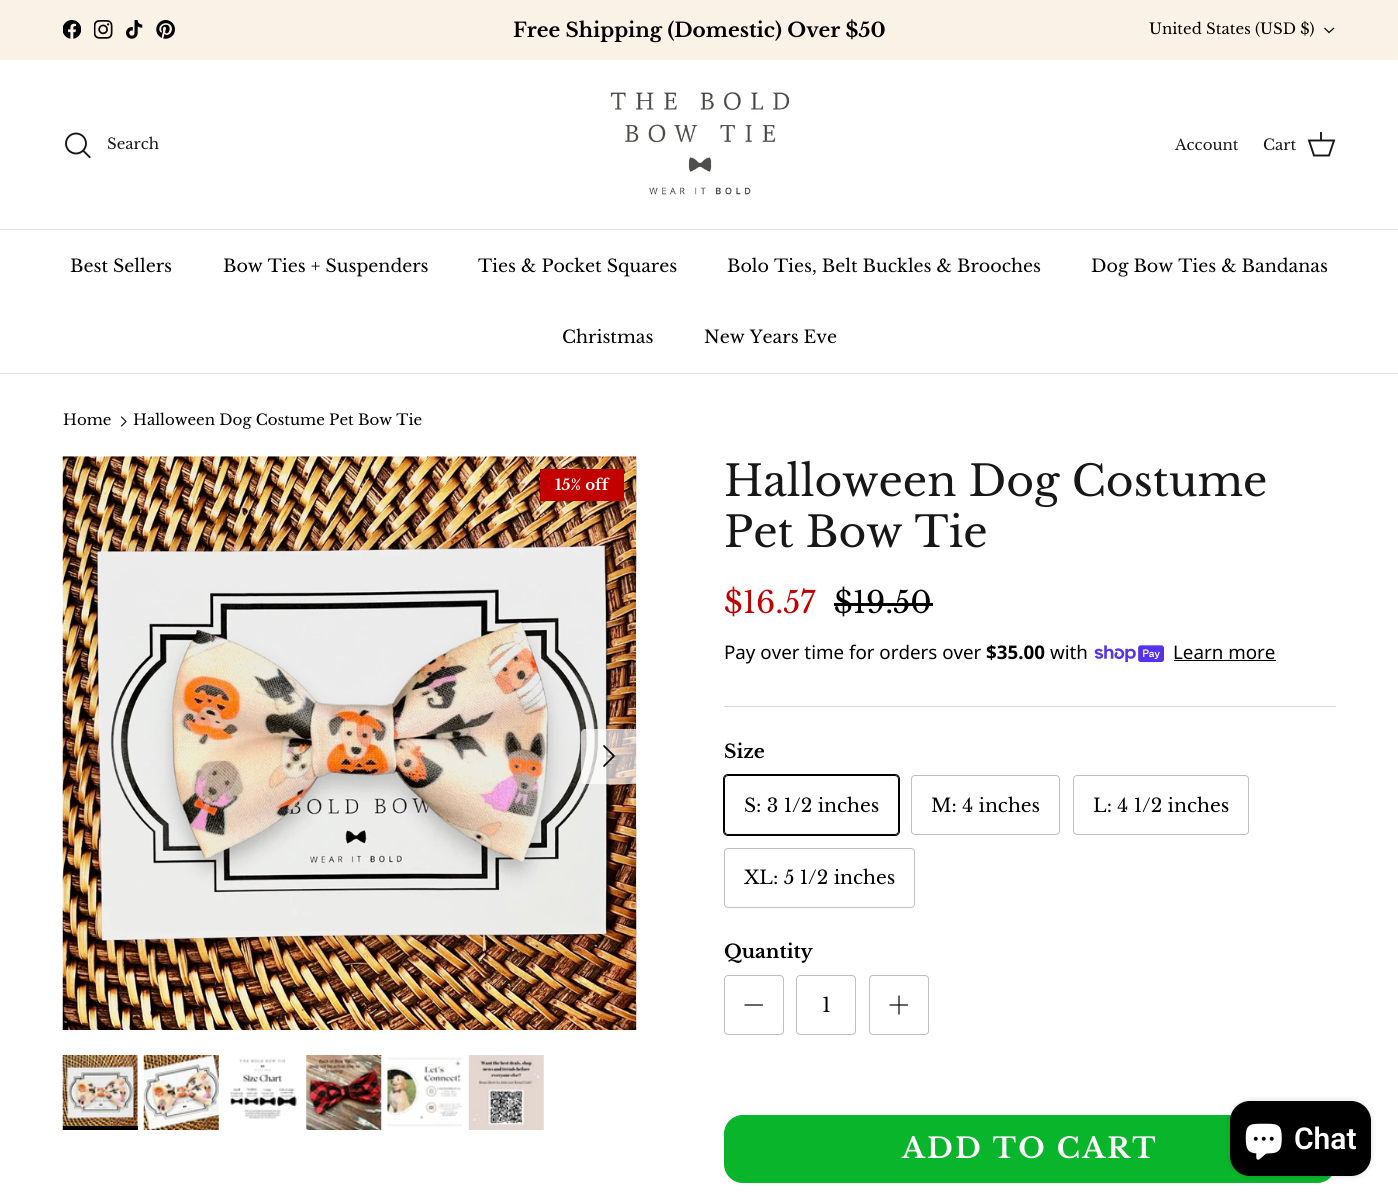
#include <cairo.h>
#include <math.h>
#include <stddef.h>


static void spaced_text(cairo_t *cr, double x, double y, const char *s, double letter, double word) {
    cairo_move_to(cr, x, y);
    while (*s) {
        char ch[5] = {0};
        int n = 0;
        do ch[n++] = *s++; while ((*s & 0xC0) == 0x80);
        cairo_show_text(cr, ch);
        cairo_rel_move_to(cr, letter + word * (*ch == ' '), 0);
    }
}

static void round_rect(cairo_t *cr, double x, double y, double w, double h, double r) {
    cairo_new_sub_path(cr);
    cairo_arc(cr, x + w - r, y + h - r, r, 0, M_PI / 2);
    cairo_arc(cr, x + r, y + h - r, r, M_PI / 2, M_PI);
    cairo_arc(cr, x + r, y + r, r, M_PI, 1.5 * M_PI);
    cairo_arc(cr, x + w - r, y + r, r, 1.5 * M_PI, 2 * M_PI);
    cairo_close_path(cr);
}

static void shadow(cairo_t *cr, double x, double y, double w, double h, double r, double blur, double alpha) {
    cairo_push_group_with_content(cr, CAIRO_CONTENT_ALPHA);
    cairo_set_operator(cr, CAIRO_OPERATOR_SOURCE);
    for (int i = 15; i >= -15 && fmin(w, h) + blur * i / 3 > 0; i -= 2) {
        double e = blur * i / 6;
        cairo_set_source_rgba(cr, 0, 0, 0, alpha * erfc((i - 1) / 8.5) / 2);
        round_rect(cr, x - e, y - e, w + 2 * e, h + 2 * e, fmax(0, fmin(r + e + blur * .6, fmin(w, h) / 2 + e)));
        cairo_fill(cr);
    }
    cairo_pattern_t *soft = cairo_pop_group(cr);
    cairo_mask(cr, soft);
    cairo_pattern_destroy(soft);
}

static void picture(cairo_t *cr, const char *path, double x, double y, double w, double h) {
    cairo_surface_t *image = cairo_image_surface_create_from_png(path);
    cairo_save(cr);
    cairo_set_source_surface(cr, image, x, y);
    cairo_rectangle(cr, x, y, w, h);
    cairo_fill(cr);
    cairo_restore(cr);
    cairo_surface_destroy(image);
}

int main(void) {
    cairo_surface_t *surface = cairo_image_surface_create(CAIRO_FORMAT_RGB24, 1398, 1202);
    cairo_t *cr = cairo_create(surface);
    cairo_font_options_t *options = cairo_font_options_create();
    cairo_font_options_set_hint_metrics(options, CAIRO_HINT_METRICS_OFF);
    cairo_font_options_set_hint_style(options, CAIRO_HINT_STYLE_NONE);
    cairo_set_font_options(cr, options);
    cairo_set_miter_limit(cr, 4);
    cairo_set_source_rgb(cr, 1, 1, 1);
    cairo_paint(cr);
    cairo_set_source_rgb(cr, 0.98, 0.949, 0.902);
    cairo_rectangle(cr, 0, 0, 1398, 60);
    cairo_fill(cr);
    picture(cr, "img1.png", 63, 20, 18, 19);
    picture(cr, "img2.png", 94, 20, 19, 19);
    picture(cr, "img3.png", 126, 20, 17, 19);
    picture(cr, "img4.png", 156, 20, 19, 19);
    cairo_select_font_face(cr, "Libre Baskerville", CAIRO_FONT_SLANT_NORMAL, CAIRO_FONT_WEIGHT_BOLD);
    cairo_set_font_size(cr, 20);
    cairo_set_source_rgb(cr, 0, 0, 0);
    cairo_move_to(cr, 513, 37);
    cairo_show_text(cr, "Free Shipping (Domestic) Over $50");
    cairo_select_font_face(cr, "Libre Baskerville", CAIRO_FONT_SLANT_NORMAL, CAIRO_FONT_WEIGHT_NORMAL);
    cairo_set_font_size(cr, 15);
    cairo_move_to(cr, 1149, 34);
    cairo_show_text(cr, "United States (USD $)");
    cairo_new_path(cr);
    cairo_move_to(cr, 1334, 28);
    cairo_line_to(cr, 1329, 32.5);
    cairo_line_to(cr, 1324.5, 28);
    cairo_set_line_width(cr, 1.2);
    cairo_stroke(cr);
    cairo_set_source_rgb(cr, 0.875, 0.89, 0.91);
    cairo_rectangle(cr, 0, 229, 1398, 1);
    cairo_fill(cr);
    cairo_arc(cr, 76, 143.5, 10, 0, 2 * M_PI);
    cairo_set_source_rgb(cr, 0.09, 0.09, 0.09);
    cairo_set_line_width(cr, 1.9);
    cairo_stroke(cr);
    cairo_move_to(cr, 107, 149);
    cairo_show_text(cr, "Search");
    cairo_new_path(cr);
    cairo_move_to(cr, 83.5, 151);
    cairo_line_to(cr, 89.5, 157);
    cairo_set_line_cap(cr, CAIRO_LINE_CAP_SQUARE);
    cairo_stroke(cr);
    picture(cr, "img5.png", 610, 91, 181, 104);
    cairo_move_to(cr, 1175, 150);
    cairo_show_text(cr, "Account");
    cairo_move_to(cr, 1263, 150);
    cairo_show_text(cr, "Cart");
    cairo_new_path(cr);
    cairo_move_to(cr, 1309, 140.5);
    cairo_line_to(cr, 1334, 140.5);
    cairo_line_to(cr, 1329, 155.5);
    cairo_line_to(cr, 1314, 155.5);
    cairo_close_path(cr);
    cairo_set_line_cap(cr, CAIRO_LINE_CAP_BUTT);
    cairo_stroke(cr);
    cairo_set_source_rgba(cr, 0.09, 0.09, 0.09, 0.95);
    cairo_rectangle(cr, 1320, 132, 2, 9);
    cairo_fill(cr);
    cairo_set_source_rgb(cr, 0.875, 0.89, 0.91);
    cairo_rectangle(cr, 0, 373, 1398, 1);
    cairo_fill(cr);
    cairo_set_font_size(cr, 17.5);
    cairo_set_source_rgb(cr, 0, 0, 0);
    cairo_move_to(cr, 70, 272);
    cairo_show_text(cr, "Best Sellers");
    cairo_move_to(cr, 223, 272);
    cairo_show_text(cr, "Bow Ties + Suspenders");
    cairo_move_to(cr, 478, 272);
    cairo_show_text(cr, "Ties & Pocket Squares");
    cairo_move_to(cr, 727, 272);
    cairo_show_text(cr, "Bolo Ties, Belt Buckles & Brooches");
    cairo_move_to(cr, 1091, 272);
    cairo_show_text(cr, "Dog Bow Ties & Bandanas");
    cairo_move_to(cr, 562, 343);
    cairo_show_text(cr, "Christmas");
    cairo_move_to(cr, 704, 343);
    cairo_show_text(cr, "New Years Eve");
    cairo_set_font_size(cr, 15);
    cairo_move_to(cr, 63, 425);
    cairo_show_text(cr, "Home");
    cairo_new_path(cr);
    cairo_move_to(cr, 121.5, 426);
    cairo_line_to(cr, 126, 421.5);
    cairo_line_to(cr, 121.5, 417);
    cairo_set_line_width(cr, 1.1);
    cairo_set_line_cap(cr, CAIRO_LINE_CAP_ROUND);
    cairo_set_line_join(cr, CAIRO_LINE_JOIN_ROUND);
    cairo_stroke(cr);
    cairo_move_to(cr, 133, 425);
    cairo_show_text(cr, "Halloween Dog Costume Pet Bow Tie");
    picture(cr, "img6.png", 62, 456, 575, 574);
    picture(cr, "img7.png", 636, 456, 1, 574);
    cairo_set_source_rgba(cr, 1, 1, 1, 0.7);
    cairo_new_path(cr);
    cairo_move_to(cr, 585, 729);
    cairo_line_to(cr, 636, 729);
    cairo_line_to(cr, 636, 784);
    cairo_line_to(cr, 585, 784);
    cairo_curve_to(cr, 583, 784, 581, 782, 581, 780);
    cairo_line_to(cr, 581, 733);
    cairo_curve_to(cr, 581, 731, 583, 729, 585, 729);
    cairo_close_path(cr);
    cairo_fill(cr);
    cairo_new_path(cr);
    cairo_move_to(cr, 604, 766);
    cairo_line_to(cr, 614, 756);
    cairo_line_to(cr, 604, 746);
    cairo_set_source_rgb(cr, 0, 0, 0);
    cairo_set_line_width(cr, 1.7);
    cairo_stroke(cr);
    cairo_set_source_rgb(cr, 0.761, 0, 0);
    cairo_rectangle(cr, 540, 469, 84, 32);
    cairo_fill(cr);
    cairo_select_font_face(cr, "Libre Baskerville", CAIRO_FONT_SLANT_NORMAL, CAIRO_FONT_WEIGHT_BOLD);
    cairo_set_source_rgb(cr, 1, 1, 1);
    cairo_move_to(cr, 555, 490);
    cairo_show_text(cr, "15% off");
    picture(cr, "img8.png", 62, 1055, 76, 75);
    cairo_set_source_rgb(cr, 0, 0, 0);
    cairo_rectangle(cr, 63, 1126, 75, 4);
    cairo_fill(cr);
    picture(cr, "img9.png", 143, 1055, 76, 75);
    picture(cr, "img10.png", 230, 1058, 69, 61);
    picture(cr, "img11.png", 306, 1055, 76, 75);
    picture(cr, "img12.png", 387, 1057, 76, 70);
    picture(cr, "img13.png", 468, 1055, 76, 75);
    cairo_select_font_face(cr, "Libre Baskerville", CAIRO_FONT_SLANT_NORMAL, CAIRO_FONT_WEIGHT_NORMAL);
    cairo_set_font_size(cr, 42.5);
    cairo_set_source_rgb(cr, 0.09, 0.09, 0.09);
    cairo_move_to(cr, 724, 496);
    cairo_show_text(cr, "Halloween Dog Costume");
    cairo_move_to(cr, 724, 547);
    cairo_show_text(cr, "Pet Bow Tie");
    cairo_set_font_size(cr, 30);
    cairo_set_source_rgb(cr, 0.761, 0, 0);
    cairo_move_to(cr, 724, 613);
    cairo_show_text(cr, "$16.57");
    cairo_set_source_rgb(cr, 0, 0, 0);
    cairo_move_to(cr, 834, 613);
    cairo_show_text(cr, "$19.50");
    cairo_rectangle(cr, 834, 603, 99, 3);
    cairo_fill(cr);
    cairo_select_font_face(cr, "Noto Sans", CAIRO_FONT_SLANT_NORMAL, CAIRO_FONT_WEIGHT_NORMAL);
    cairo_set_font_size(cr, 18.75);
    cairo_move_to(cr, 724, 659);
    cairo_show_text(cr, "Pay over time for orders over");
    cairo_select_font_face(cr, "Noto Sans", CAIRO_FONT_SLANT_NORMAL, CAIRO_FONT_WEIGHT_BOLD);
    cairo_move_to(cr, 986, 659);
    cairo_show_text(cr, "$35.00");
    cairo_select_font_face(cr, "Noto Sans", CAIRO_FONT_SLANT_NORMAL, CAIRO_FONT_WEIGHT_NORMAL);
    cairo_move_to(cr, 1050, 659);
    cairo_show_text(cr, "with");
    picture(cr, "img14.png", 1094, 645, 70, 18);
    cairo_move_to(cr, 1173, 659);
    cairo_show_text(cr, "Learn more");
    cairo_rectangle(cr, 1174, 660, 102, 1);
    cairo_fill(cr);
    cairo_set_source_rgb(cr, 0.859, 0.859, 0.859);
    cairo_rectangle(cr, 724, 706, 612, 1);
    cairo_fill(cr);
    cairo_select_font_face(cr, "Libre Baskerville", CAIRO_FONT_SLANT_NORMAL, CAIRO_FONT_WEIGHT_BOLD);
    cairo_set_source_rgb(cr, 0, 0, 0);
    cairo_move_to(cr, 724, 758);
    cairo_show_text(cr, "Size");
    round_rect(cr, 723.5, 774.5, 176, 61, 4.5);
    cairo_set_line_width(cr, 1);
    cairo_set_line_cap(cr, CAIRO_LINE_CAP_BUTT);
    cairo_set_line_join(cr, CAIRO_LINE_JOIN_MITER);
    cairo_stroke(cr);
    cairo_set_source_rgb(cr, 1, 1, 1);
    round_rect(cr, 724.5, 775.5, 174, 59, 3.5);
    cairo_fill_preserve(cr);
    cairo_set_source_rgb(cr, 0, 0, 0);
    cairo_stroke(cr);
    cairo_select_font_face(cr, "Libre Baskerville", CAIRO_FONT_SLANT_NORMAL, CAIRO_FONT_WEIGHT_NORMAL);
    cairo_move_to(cr, 744, 812);
    cairo_show_text(cr, "S: 3 1/2 inches");
    round_rect(cr, 911.5, 775.5, 148, 59, 3.5);
    cairo_set_source_rgb(cr, 0.749, 0.749, 0.749);
    cairo_stroke(cr);
    cairo_set_source_rgb(cr, 0, 0, 0);
    cairo_move_to(cr, 931, 812);
    cairo_show_text(cr, "M: 4 inches");
    round_rect(cr, 1073.5, 775.5, 175, 59, 3.5);
    cairo_set_source_rgb(cr, 0.749, 0.749, 0.749);
    cairo_stroke(cr);
    cairo_set_source_rgb(cr, 0, 0, 0);
    cairo_move_to(cr, 1093, 812);
    cairo_show_text(cr, "L: 4 1/2 inches");
    round_rect(cr, 724.5, 848.5, 190, 59, 3.5);
    cairo_set_source_rgb(cr, 0.749, 0.749, 0.749);
    cairo_stroke(cr);
    cairo_set_source_rgb(cr, 0, 0, 0);
    cairo_move_to(cr, 744, 884);
    cairo_show_text(cr, "XL: 5 1/2 inches");
    cairo_select_font_face(cr, "Libre Baskerville", CAIRO_FONT_SLANT_NORMAL, CAIRO_FONT_WEIGHT_BOLD);
    cairo_move_to(cr, 724, 958);
    cairo_show_text(cr, "Quantity");
    round_rect(cr, 724.5, 975.5, 59, 59, 3.5);
    cairo_set_source_rgb(cr, 0.749, 0.749, 0.749);
    cairo_stroke(cr);
    cairo_new_path(cr);
    cairo_move_to(cr, 745, 1005);
    cairo_line_to(cr, 762.5, 1005);
    cairo_set_source_rgb(cr, 0, 0, 0);
    cairo_set_line_width(cr, 1.2);
    cairo_set_line_cap(cr, CAIRO_LINE_CAP_ROUND);
    cairo_set_line_join(cr, CAIRO_LINE_JOIN_ROUND);
    cairo_stroke(cr);
    round_rect(cr, 796.5, 975.5, 59, 59, 3.5);
    cairo_set_source_rgb(cr, 0.749, 0.749, 0.749);
    cairo_set_line_width(cr, 1);
    cairo_set_line_cap(cr, CAIRO_LINE_CAP_BUTT);
    cairo_set_line_join(cr, CAIRO_LINE_JOIN_MITER);
    cairo_stroke(cr);
    cairo_select_font_face(cr, "Libre Baskerville", CAIRO_FONT_SLANT_NORMAL, CAIRO_FONT_WEIGHT_NORMAL);
    cairo_set_font_size(cr, 20);
    cairo_set_source_rgb(cr, 0, 0, 0);
    cairo_move_to(cr, 822, 1012);
    cairo_show_text(cr, "1");
    round_rect(cr, 869.5, 975.5, 59, 59, 3.5);
    cairo_set_source_rgb(cr, 0.749, 0.749, 0.749);
    cairo_stroke(cr);
    cairo_new_path(cr);
    cairo_move_to(cr, 899, 996);
    cairo_line_to(cr, 899, 1014);
    cairo_move_to(cr, 890, 1005);
    cairo_line_to(cr, 907.5, 1005);
    cairo_set_source_rgb(cr, 0, 0, 0);
    cairo_set_line_width(cr, 1.2);
    cairo_set_line_cap(cr, CAIRO_LINE_CAP_ROUND);
    cairo_set_line_join(cr, CAIRO_LINE_JOIN_ROUND);
    cairo_stroke(cr);
    cairo_set_source_rgb(cr, 0.039, 0.71, 0.169);
    round_rect(cr, 724.5, 1115.5, 611, 67, 18.5);
    cairo_fill_preserve(cr);
    cairo_set_line_width(cr, 1);
    cairo_set_line_cap(cr, CAIRO_LINE_CAP_BUTT);
    cairo_set_line_join(cr, CAIRO_LINE_JOIN_MITER);
    cairo_stroke(cr);
    cairo_select_font_face(cr, "Libre Baskerville", CAIRO_FONT_SLANT_NORMAL, CAIRO_FONT_WEIGHT_BOLD);
    cairo_set_font_size(cr, 28.1);
    cairo_set_source_rgb(cr, 1, 1, 1);
    spaced_text(cr, 902, 1158, "ADD TO CART", 2.25, 0);
    cairo_set_source_rgb(cr, 0, 0, 0);
    shadow(cr, 1230, 1101, 141, 75, 20, 3, 0.15);
    cairo_set_source_rgb(cr, 0, 0, 0);
    round_rect(cr, 1230, 1101, 141, 75, 20);
    cairo_fill(cr);
    picture(cr, "img15.png", 1245, 1123, 37, 37);
    cairo_select_font_face(cr, "Roboto SemiBold", CAIRO_FONT_SLANT_NORMAL, CAIRO_FONT_WEIGHT_NORMAL);
    cairo_set_font_size(cr, 30);
    cairo_set_source_rgb(cr, 1, 1, 1);
    cairo_move_to(cr, 1294, 1149);
    cairo_show_text(cr, "Chat");
    cairo_surface_write_to_png(surface, "page.png");
    cairo_font_options_destroy(options);
    cairo_destroy(cr);
    cairo_surface_destroy(surface);
    return 0;
}
